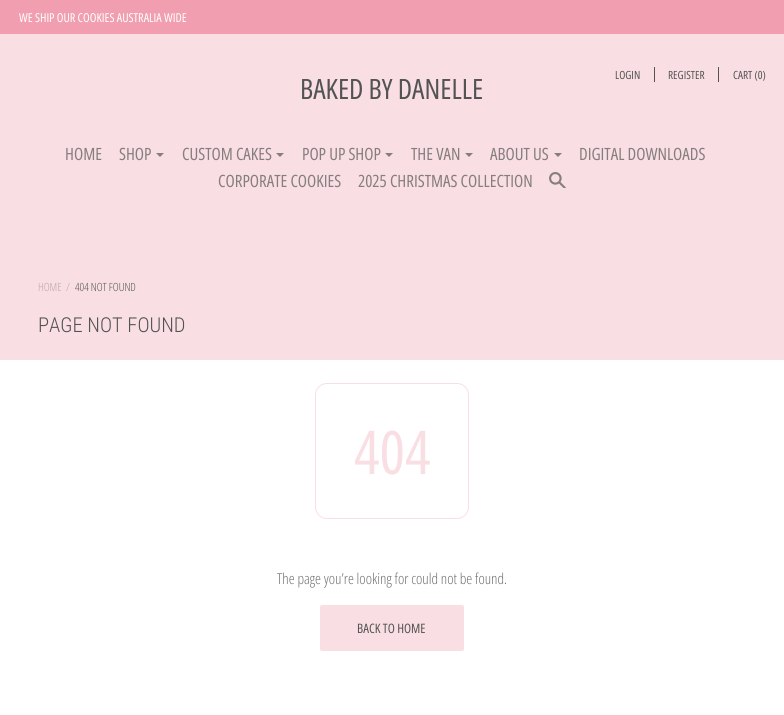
#include <cairo.h>
#include <math.h>
#include <stddef.h>


static void round_rect(cairo_t *cr, double x, double y, double w, double h, double r) {
    cairo_new_sub_path(cr);
    cairo_arc(cr, x + w - r, y + h - r, r, 0, M_PI / 2);
    cairo_arc(cr, x + r, y + h - r, r, M_PI / 2, M_PI);
    cairo_arc(cr, x + r, y + r, r, M_PI, 1.5 * M_PI);
    cairo_arc(cr, x + w - r, y + r, r, 1.5 * M_PI, 2 * M_PI);
    cairo_close_path(cr);
}

static void picture(cairo_t *cr, const char *path, double x, double y, double w, double h) {
    cairo_surface_t *image = cairo_image_surface_create_from_png(path);
    cairo_save(cr);
    cairo_set_source_surface(cr, image, x, y);
    cairo_rectangle(cr, x, y, w, h);
    cairo_fill(cr);
    cairo_restore(cr);
    cairo_surface_destroy(image);
}

int main(void) {
    cairo_surface_t *surface = cairo_image_surface_create(CAIRO_FORMAT_RGB24, 784, 715);
    cairo_t *cr = cairo_create(surface);
    cairo_font_options_t *options = cairo_font_options_create();
    cairo_font_options_set_hint_metrics(options, CAIRO_HINT_METRICS_OFF);
    cairo_font_options_set_hint_style(options, CAIRO_HINT_STYLE_NONE);
    cairo_set_font_options(cr, options);
    cairo_set_miter_limit(cr, 4);
    cairo_set_source_rgb(cr, 1, 1, 1);
    cairo_paint(cr);
    cairo_set_source_rgb(cr, 0.976, 0.871, 0.89);
    cairo_rectangle(cr, 0, 34, 784, 326);
    cairo_fill(cr);
    cairo_set_source_rgb(cr, 0.945, 0.62, 0.69);
    cairo_rectangle(cr, 0, 0, 784, 34);
    cairo_fill(cr);
    cairo_select_font_face(cr, "Open Sans Condensed", CAIRO_FONT_SLANT_NORMAL, CAIRO_FONT_WEIGHT_NORMAL);
    cairo_set_font_size(cr, 12.25);
    cairo_set_source_rgb(cr, 1, 1, 1);
    cairo_move_to(cr, 19, 22);
    cairo_show_text(cr, "WE SHIP OUR COOKIES AUSTRALIA WIDE");
    cairo_set_font_size(cr, 11.25);
    cairo_set_source_rgb(cr, 0.325, 0.325, 0.325);
    cairo_move_to(cr, 615, 79);
    cairo_show_text(cr, "LOGIN");
    cairo_rectangle(cr, 654, 67, 1, 15);
    cairo_fill(cr);
    cairo_move_to(cr, 668, 79);
    cairo_show_text(cr, "REGISTER");
    cairo_rectangle(cr, 718, 67, 1, 15);
    cairo_fill(cr);
    cairo_move_to(cr, 733, 79);
    cairo_show_text(cr, "CART (0)");
    cairo_set_font_size(cr, 28);
    cairo_move_to(cr, 300, 99);
    cairo_show_text(cr, "BAKED BY DANELLE");
    cairo_set_font_size(cr, 16.9);
    cairo_set_source_rgb(cr, 0.522, 0.49, 0.494);
    cairo_move_to(cr, 65, 160);
    cairo_show_text(cr, "HOME");
    cairo_move_to(cr, 119, 160);
    cairo_show_text(cr, "SHOP");
    cairo_new_path(cr);
    cairo_move_to(cr, 156, 153);
    cairo_line_to(cr, 164, 153);
    cairo_line_to(cr, 160, 157);
    cairo_close_path(cr);
    cairo_fill(cr);
    cairo_move_to(cr, 182, 160);
    cairo_show_text(cr, "CUSTOM CAKES");
    cairo_new_path(cr);
    cairo_move_to(cr, 276, 153);
    cairo_line_to(cr, 284, 153);
    cairo_line_to(cr, 280, 157);
    cairo_close_path(cr);
    cairo_fill(cr);
    cairo_move_to(cr, 302, 160);
    cairo_show_text(cr, "POP UP SHOP");
    cairo_new_path(cr);
    cairo_move_to(cr, 385, 153);
    cairo_line_to(cr, 393, 153);
    cairo_line_to(cr, 389, 157);
    cairo_close_path(cr);
    cairo_fill(cr);
    cairo_move_to(cr, 411, 160);
    cairo_show_text(cr, "THE VAN");
    cairo_new_path(cr);
    cairo_move_to(cr, 465, 153);
    cairo_line_to(cr, 473, 153);
    cairo_line_to(cr, 469, 157);
    cairo_close_path(cr);
    cairo_fill(cr);
    cairo_move_to(cr, 490, 160);
    cairo_show_text(cr, "ABOUT US");
    cairo_new_path(cr);
    cairo_move_to(cr, 554, 153);
    cairo_line_to(cr, 562, 153);
    cairo_line_to(cr, 558, 157);
    cairo_close_path(cr);
    cairo_fill(cr);
    cairo_move_to(cr, 579, 160);
    cairo_show_text(cr, "DIGITAL DOWNLOADS");
    cairo_move_to(cr, 218, 187);
    cairo_show_text(cr, "CORPORATE COOKIES");
    cairo_move_to(cr, 358, 187);
    cairo_show_text(cr, "2025 CHRISTMAS COLLECTION");
    picture(cr, "img1.png", 549, 172, 17, 16);
    cairo_select_font_face(cr, "Open Sans Condensed Light", CAIRO_FONT_SLANT_NORMAL, CAIRO_FONT_WEIGHT_NORMAL);
    cairo_set_font_size(cr, 11.25);
    cairo_set_source_rgb(cr, 0.718, 0.651, 0.663);
    cairo_move_to(cr, 38, 291);
    cairo_show_text(cr, "HOME");
    cairo_move_to(cr, 66, 291);
    cairo_show_text(cr, "/");
    cairo_set_source_rgb(cr, 0.325, 0.325, 0.325);
    cairo_move_to(cr, 75, 291);
    cairo_show_text(cr, "404 NOT FOUND");
    cairo_select_font_face(cr, "Roboto Condensed Light", CAIRO_FONT_SLANT_NORMAL, CAIRO_FONT_WEIGHT_NORMAL);
    cairo_set_font_size(cr, 20.5);
    cairo_move_to(cr, 38, 332);
    cairo_show_text(cr, "PAGE NOT FOUND");
    round_rect(cr, 315.5, 383.5, 153, 135, 11.5);
    cairo_set_source_rgb(cr, 0.976, 0.871, 0.89);
    cairo_set_line_width(cr, 1);
    cairo_stroke(cr);
    cairo_select_font_face(cr, "Open Sans Condensed", CAIRO_FONT_SLANT_NORMAL, CAIRO_FONT_WEIGHT_NORMAL);
    cairo_set_font_size(cr, 60);
    cairo_move_to(cr, 354, 474);
    cairo_show_text(cr, "404");
    cairo_select_font_face(cr, "Open Sans Condensed Light", CAIRO_FONT_SLANT_NORMAL, CAIRO_FONT_WEIGHT_NORMAL);
    cairo_set_font_size(cr, 15);
    cairo_set_source_rgb(cr, 0.435, 0.435, 0.435);
    cairo_move_to(cr, 277, 584);
    cairo_show_text(cr, "The page you’re looking for could not be found.");
    cairo_set_source_rgb(cr, 0.976, 0.871, 0.89);
    round_rect(cr, 320, 605, 144, 46, 2);
    cairo_fill(cr);
    cairo_select_font_face(cr, "Open Sans Condensed", CAIRO_FONT_SLANT_NORMAL, CAIRO_FONT_WEIGHT_NORMAL);
    cairo_set_font_size(cr, 13);
    cairo_set_source_rgb(cr, 0.325, 0.325, 0.325);
    cairo_move_to(cr, 357, 633);
    cairo_show_text(cr, "BACK TO HOME");
    cairo_surface_write_to_png(surface, "page.png");
    cairo_font_options_destroy(options);
    cairo_destroy(cr);
    cairo_surface_destroy(surface);
    return 0;
}
